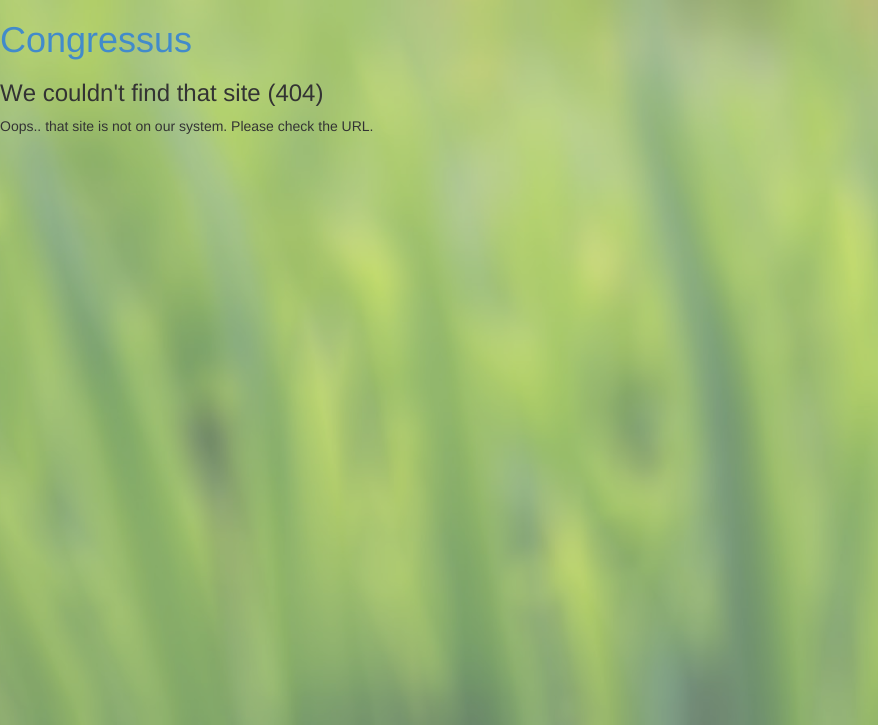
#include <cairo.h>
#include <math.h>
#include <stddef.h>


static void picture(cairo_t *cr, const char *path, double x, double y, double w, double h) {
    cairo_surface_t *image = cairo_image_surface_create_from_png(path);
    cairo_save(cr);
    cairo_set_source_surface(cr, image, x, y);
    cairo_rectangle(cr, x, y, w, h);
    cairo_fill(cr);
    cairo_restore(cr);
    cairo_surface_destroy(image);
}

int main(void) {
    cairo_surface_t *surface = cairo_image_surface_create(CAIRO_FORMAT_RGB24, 878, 725);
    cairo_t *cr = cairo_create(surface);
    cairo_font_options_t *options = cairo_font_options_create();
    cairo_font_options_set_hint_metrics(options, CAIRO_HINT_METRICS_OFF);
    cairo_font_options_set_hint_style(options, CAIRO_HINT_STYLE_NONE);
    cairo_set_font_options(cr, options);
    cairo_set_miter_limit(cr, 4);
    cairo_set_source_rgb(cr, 1, 1, 1);
    cairo_paint(cr);
    picture(cr, "img1.png", 0, 0, 878, 725);
    cairo_select_font_face(cr, "Liberation Sans", CAIRO_FONT_SLANT_NORMAL, CAIRO_FONT_WEIGHT_NORMAL);
    cairo_set_font_size(cr, 36);
    cairo_set_source_rgb(cr, 0.259, 0.545, 0.792);
    cairo_move_to(cr, 0, 52);
    cairo_show_text(cr, "Congressus");
    cairo_set_font_size(cr, 24);
    cairo_set_source_rgb(cr, 0.2, 0.2, 0.2);
    cairo_move_to(cr, 0, 101);
    cairo_show_text(cr, "We couldn't find that site (404)");
    cairo_set_font_size(cr, 14);
    cairo_move_to(cr, 0, 131);
    cairo_show_text(cr, "Oops.. that site is not on our system. Please check the URL.");
    cairo_surface_write_to_png(surface, "page.png");
    cairo_font_options_destroy(options);
    cairo_destroy(cr);
    cairo_surface_destroy(surface);
    return 0;
}
